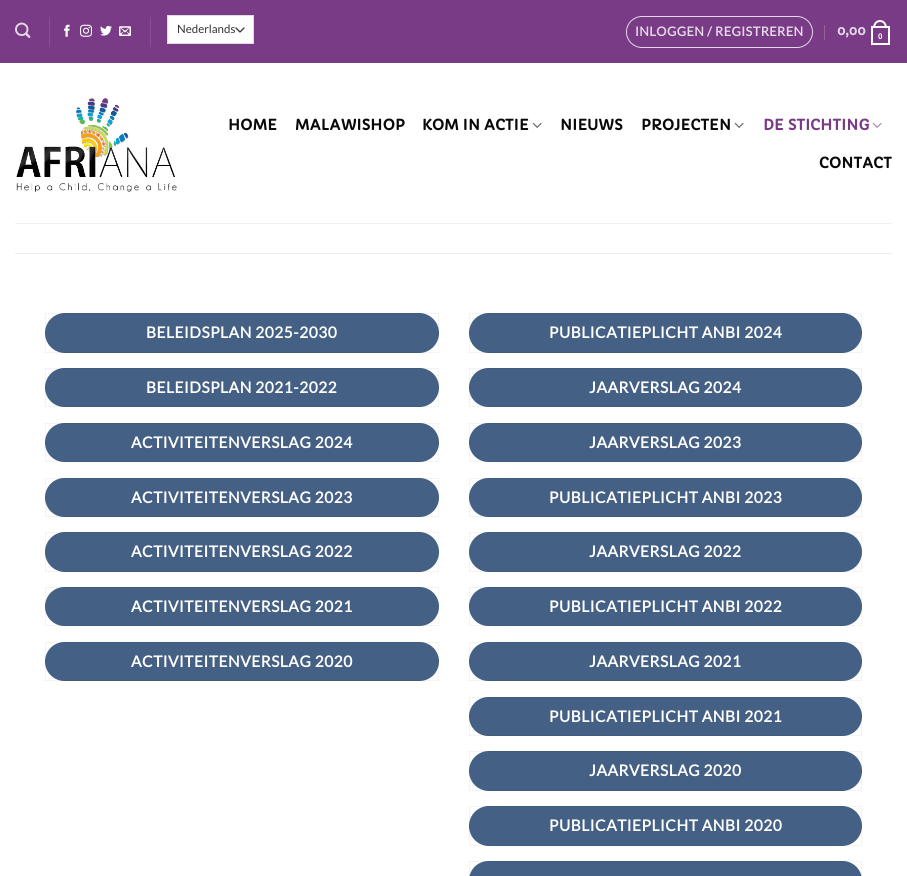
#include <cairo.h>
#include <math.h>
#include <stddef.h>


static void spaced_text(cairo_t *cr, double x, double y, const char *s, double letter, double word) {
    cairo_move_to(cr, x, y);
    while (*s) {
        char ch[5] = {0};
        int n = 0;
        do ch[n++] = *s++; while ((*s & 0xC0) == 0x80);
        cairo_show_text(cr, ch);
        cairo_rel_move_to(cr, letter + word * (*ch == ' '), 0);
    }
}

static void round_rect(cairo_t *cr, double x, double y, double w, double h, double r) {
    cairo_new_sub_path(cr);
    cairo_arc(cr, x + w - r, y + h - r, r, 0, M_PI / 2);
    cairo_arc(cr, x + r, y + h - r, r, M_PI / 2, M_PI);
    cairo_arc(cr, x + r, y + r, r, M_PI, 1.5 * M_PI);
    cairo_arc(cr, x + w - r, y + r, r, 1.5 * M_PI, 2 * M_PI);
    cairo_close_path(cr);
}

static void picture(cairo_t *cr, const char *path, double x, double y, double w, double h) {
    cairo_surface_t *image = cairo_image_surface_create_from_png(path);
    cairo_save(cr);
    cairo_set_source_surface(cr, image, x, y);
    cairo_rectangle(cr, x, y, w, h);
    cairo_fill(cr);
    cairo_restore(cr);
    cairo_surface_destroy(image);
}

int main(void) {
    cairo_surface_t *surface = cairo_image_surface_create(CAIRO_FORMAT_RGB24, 907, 876);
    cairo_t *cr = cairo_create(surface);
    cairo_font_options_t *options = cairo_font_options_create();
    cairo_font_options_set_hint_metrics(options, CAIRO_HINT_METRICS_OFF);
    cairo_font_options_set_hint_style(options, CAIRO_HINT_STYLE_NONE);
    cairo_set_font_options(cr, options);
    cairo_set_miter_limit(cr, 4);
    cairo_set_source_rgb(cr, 1, 1, 1);
    cairo_paint(cr);
    cairo_set_source_rgb(cr, 0.475, 0.231, 0.522);
    cairo_rectangle(cr, 0, 0, 907, 63);
    cairo_fill(cr);
    picture(cr, "img1.png", 15, 22, 16, 16);
    cairo_set_source_rgb(cr, 0.525, 0.31, 0.569);
    cairo_rectangle(cr, 49, 17, 1, 30);
    cairo_fill(cr);
    picture(cr, "img2.png", 64, 24, 6, 13);
    picture(cr, "img3.png", 80, 24, 12, 13);
    picture(cr, "img4.png", 100, 25, 12, 11);
    picture(cr, "img5.png", 119, 26, 12, 10);
    cairo_rectangle(cr, 150, 17, 1, 30);
    cairo_fill(cr);
    cairo_set_source_rgb(cr, 1, 1, 1);
    cairo_rectangle(cr, 168, 16, 85, 27);
    cairo_fill(cr);
    cairo_new_path(cr);
    cairo_move_to(cr, 236, 28);
    cairo_line_to(cr, 240, 32);
    cairo_line_to(cr, 244, 28);
    cairo_set_source_rgb(cr, 0.2, 0.2, 0.2);
    cairo_set_line_width(cr, 1.3);
    cairo_set_line_cap(cr, CAIRO_LINE_CAP_ROUND);
    cairo_set_line_join(cr, CAIRO_LINE_JOIN_ROUND);
    cairo_stroke(cr);
    cairo_rectangle(cr, 167.5, 15.5, 86, 28);
    cairo_set_source_rgb(cr, 0.867, 0.867, 0.867);
    cairo_set_line_width(cr, 1);
    cairo_set_line_cap(cr, CAIRO_LINE_CAP_BUTT);
    cairo_set_line_join(cr, CAIRO_LINE_JOIN_MITER);
    cairo_stroke(cr);
    cairo_select_font_face(cr, "Lato", CAIRO_FONT_SLANT_NORMAL, CAIRO_FONT_WEIGHT_NORMAL);
    cairo_set_font_size(cr, 11.5);
    cairo_set_source_rgb(cr, 0.2, 0.2, 0.2);
    cairo_move_to(cr, 177, 33);
    cairo_show_text(cr, "Nederlands");
    round_rect(cr, 626.5, 16.5, 186, 31, 15.5);
    cairo_set_source_rgb(cr, 0.894, 0.847, 0.906);
    cairo_stroke(cr);
    cairo_select_font_face(cr, "Lato", CAIRO_FONT_SLANT_NORMAL, CAIRO_FONT_WEIGHT_BOLD);
    cairo_set_font_size(cr, 12.75);
    spaced_text(cr, 635, 36, "INLOGGEN / REGISTREREN", 0.4, 0);
    cairo_set_source_rgb(cr, 0.58, 0.384, 0.616);
    cairo_rectangle(cr, 824, 25, 1, 15);
    cairo_fill(cr);
    cairo_select_font_face(cr, "Capriola", CAIRO_FONT_SLANT_NORMAL, CAIRO_FONT_WEIGHT_BOLD);
    cairo_set_source_rgb(cr, 0.894, 0.847, 0.906);
    cairo_move_to(cr, 837, 35);
    cairo_show_text(cr, "0,00");
    cairo_rectangle(cr, 872, 27, 17, 17);
    cairo_set_source_rgb(cr, 1, 1, 1);
    cairo_set_line_width(cr, 2);
    cairo_stroke(cr);
    cairo_set_fill_rule(cr, CAIRO_FILL_RULE_EVEN_ODD);
    cairo_new_path(cr);
    cairo_move_to(cr, 880, 20);
    cairo_curve_to(cr, 884.5, 20, 887, 24, 887, 28);
    cairo_line_to(cr, 873, 28);
    cairo_curve_to(cr, 873, 24, 875.5, 20, 880, 20);
    cairo_close_path(cr);
    cairo_move_to(cr, 880, 22);
    cairo_curve_to(cr, 883.5, 22, 885, 25, 885, 28);
    cairo_line_to(cr, 875, 28);
    cairo_curve_to(cr, 875, 25, 876.5, 22, 880, 22);
    cairo_close_path(cr);
    cairo_fill(cr);
    cairo_select_font_face(cr, "Liberation Sans", CAIRO_FONT_SLANT_NORMAL, CAIRO_FONT_WEIGHT_BOLD);
    cairo_set_font_size(cr, 8);
    cairo_move_to(cr, 878, 39);
    cairo_show_text(cr, "0");
    picture(cr, "img6.png", 16, 98, 161, 94);
    cairo_select_font_face(cr, "Capriola", CAIRO_FONT_SLANT_NORMAL, CAIRO_FONT_WEIGHT_BOLD);
    cairo_set_font_size(cr, 14.5);
    cairo_set_source_rgb(cr, 0.039, 0.039, 0.039);
    spaced_text(cr, 228, 130, "HOME", 0.25, 0);
    spaced_text(cr, 295, 130, "MALAWISHOP", 0.25, 0);
    spaced_text(cr, 422, 130, "KOM IN ACTIE", 0.25, 0);
    picture(cr, "img7.png", 532, 122, 10, 6);
    spaced_text(cr, 560, 130, "NIEUWS", 0.25, 0);
    spaced_text(cr, 641, 130, "PROJECTEN", 0.25, 0);
    picture(cr, "img7.png", 734, 122, 10, 6);
    cairo_set_source_rgb(cr, 0.475, 0.231, 0.522);
    spaced_text(cr, 763, 130, "DE STICHTING", 0.25, 0);
    picture(cr, "img8.png", 872, 122, 10, 6);
    cairo_set_source_rgb(cr, 0.039, 0.039, 0.039);
    spaced_text(cr, 819, 168, "CONTACT", 0.25, 0);
    cairo_set_source_rgb(cr, 0.945, 0.945, 0.945);
    cairo_rectangle(cr, 15, 223, 877, 1);
    cairo_fill(cr);
    cairo_set_source_rgb(cr, 0.922, 0.922, 0.922);
    cairo_rectangle(cr, 15, 253, 877, 1);
    cairo_fill(cr);
    cairo_set_source_rgb(cr, 0.267, 0.376, 0.518);
    round_rect(cr, 45, 313, 394, 40, 20);
    cairo_fill(cr);
    cairo_rectangle(cr, 45.5, 313.5, 393, 39);
    cairo_set_source_rgba(cr, 0, 0, 0, 0.05);
    cairo_set_line_width(cr, 1);
    cairo_stroke(cr);
    cairo_select_font_face(cr, "Lato", CAIRO_FONT_SLANT_NORMAL, CAIRO_FONT_WEIGHT_BOLD);
    cairo_set_font_size(cr, 15.5);
    cairo_set_source_rgb(cr, 1, 1, 1);
    spaced_text(cr, 146, 338, "BELEIDSPLAN 2025-2030", 0.5, 0);
    cairo_set_source_rgb(cr, 0.267, 0.376, 0.518);
    round_rect(cr, 45, 368, 394, 39, 19.5);
    cairo_fill(cr);
    cairo_rectangle(cr, 45.5, 368.5, 393, 38);
    cairo_set_source_rgba(cr, 0, 0, 0, 0.05);
    cairo_stroke(cr);
    cairo_set_source_rgb(cr, 1, 1, 1);
    spaced_text(cr, 146, 393, "BELEIDSPLAN 2021-2022", 0.5, 0);
    cairo_set_source_rgb(cr, 0.267, 0.376, 0.518);
    round_rect(cr, 45, 423, 394, 39, 19.5);
    cairo_fill(cr);
    cairo_rectangle(cr, 45.5, 423.5, 393, 38);
    cairo_set_source_rgba(cr, 0, 0, 0, 0.05);
    cairo_stroke(cr);
    cairo_set_source_rgb(cr, 1, 1, 1);
    spaced_text(cr, 131, 448, "ACTIVITEITENVERSLAG 2024", 0.5, 0);
    cairo_set_source_rgb(cr, 0.267, 0.376, 0.518);
    round_rect(cr, 45, 478, 394, 39, 19.5);
    cairo_fill(cr);
    cairo_rectangle(cr, 45.5, 478.5, 393, 38);
    cairo_set_source_rgba(cr, 0, 0, 0, 0.05);
    cairo_stroke(cr);
    cairo_set_source_rgb(cr, 1, 1, 1);
    spaced_text(cr, 131, 503, "ACTIVITEITENVERSLAG 2023", 0.5, 0);
    cairo_set_source_rgb(cr, 0.267, 0.376, 0.518);
    round_rect(cr, 45, 532, 394, 40, 20);
    cairo_fill(cr);
    cairo_rectangle(cr, 45.5, 532.5, 393, 39);
    cairo_set_source_rgba(cr, 0, 0, 0, 0.05);
    cairo_stroke(cr);
    cairo_set_source_rgb(cr, 1, 1, 1);
    spaced_text(cr, 131, 557, "ACTIVITEITENVERSLAG 2022", 0.5, 0);
    cairo_set_source_rgb(cr, 0.267, 0.376, 0.518);
    round_rect(cr, 45, 587, 394, 39, 19.5);
    cairo_fill(cr);
    cairo_rectangle(cr, 45.5, 587.5, 393, 38);
    cairo_set_source_rgba(cr, 0, 0, 0, 0.05);
    cairo_stroke(cr);
    cairo_set_source_rgb(cr, 1, 1, 1);
    spaced_text(cr, 131, 612, "ACTIVITEITENVERSLAG 2021", 0.5, 0);
    cairo_set_source_rgb(cr, 0.267, 0.376, 0.518);
    round_rect(cr, 45, 642, 394, 39, 19.5);
    cairo_fill(cr);
    cairo_rectangle(cr, 45.5, 642.5, 393, 38);
    cairo_set_source_rgba(cr, 0, 0, 0, 0.05);
    cairo_stroke(cr);
    cairo_set_source_rgb(cr, 1, 1, 1);
    spaced_text(cr, 131, 667, "ACTIVITEITENVERSLAG 2020", 0.5, 0);
    cairo_set_source_rgb(cr, 0.267, 0.376, 0.518);
    round_rect(cr, 469, 313, 393, 40, 20);
    cairo_fill(cr);
    cairo_rectangle(cr, 469.5, 313.5, 392, 39);
    cairo_set_source_rgba(cr, 0, 0, 0, 0.05);
    cairo_stroke(cr);
    cairo_set_source_rgb(cr, 1, 1, 1);
    spaced_text(cr, 549, 338, "PUBLICATIEPLICHT ANBI 2024", 0.5, 0);
    cairo_set_source_rgb(cr, 0.267, 0.376, 0.518);
    round_rect(cr, 469, 368, 393, 39, 19.5);
    cairo_fill(cr);
    cairo_rectangle(cr, 469.5, 368.5, 392, 38);
    cairo_set_source_rgba(cr, 0, 0, 0, 0.05);
    cairo_stroke(cr);
    cairo_set_source_rgb(cr, 1, 1, 1);
    spaced_text(cr, 589, 393, "JAARVERSLAG 2024", 0.5, 0);
    cairo_set_source_rgb(cr, 0.267, 0.376, 0.518);
    round_rect(cr, 469, 423, 393, 39, 19.5);
    cairo_fill(cr);
    cairo_rectangle(cr, 469.5, 423.5, 392, 38);
    cairo_set_source_rgba(cr, 0, 0, 0, 0.05);
    cairo_stroke(cr);
    cairo_set_source_rgb(cr, 1, 1, 1);
    spaced_text(cr, 589, 448, "JAARVERSLAG 2023", 0.5, 0);
    cairo_set_source_rgb(cr, 0.267, 0.376, 0.518);
    round_rect(cr, 469, 478, 393, 39, 19.5);
    cairo_fill(cr);
    cairo_rectangle(cr, 469.5, 478.5, 392, 38);
    cairo_set_source_rgba(cr, 0, 0, 0, 0.05);
    cairo_stroke(cr);
    cairo_set_source_rgb(cr, 1, 1, 1);
    spaced_text(cr, 549, 503, "PUBLICATIEPLICHT ANBI 2023", 0.5, 0);
    cairo_set_source_rgb(cr, 0.267, 0.376, 0.518);
    round_rect(cr, 469, 532, 393, 40, 20);
    cairo_fill(cr);
    cairo_rectangle(cr, 469.5, 532.5, 392, 39);
    cairo_set_source_rgba(cr, 0, 0, 0, 0.05);
    cairo_stroke(cr);
    cairo_set_source_rgb(cr, 1, 1, 1);
    spaced_text(cr, 589, 557, "JAARVERSLAG 2022", 0.5, 0);
    cairo_set_source_rgb(cr, 0.267, 0.376, 0.518);
    round_rect(cr, 469, 587, 393, 39, 19.5);
    cairo_fill(cr);
    cairo_rectangle(cr, 469.5, 587.5, 392, 38);
    cairo_set_source_rgba(cr, 0, 0, 0, 0.05);
    cairo_stroke(cr);
    cairo_set_source_rgb(cr, 1, 1, 1);
    spaced_text(cr, 549, 612, "PUBLICATIEPLICHT ANBI 2022", 0.5, 0);
    cairo_set_source_rgb(cr, 0.267, 0.376, 0.518);
    round_rect(cr, 469, 642, 393, 39, 19.5);
    cairo_fill(cr);
    cairo_rectangle(cr, 469.5, 642.5, 392, 38);
    cairo_set_source_rgba(cr, 0, 0, 0, 0.05);
    cairo_stroke(cr);
    cairo_set_source_rgb(cr, 1, 1, 1);
    spaced_text(cr, 589, 667, "JAARVERSLAG 2021", 0.5, 0);
    cairo_set_source_rgb(cr, 0.267, 0.376, 0.518);
    round_rect(cr, 469, 697, 393, 39, 19.5);
    cairo_fill(cr);
    cairo_rectangle(cr, 469.5, 697.5, 392, 38);
    cairo_set_source_rgba(cr, 0, 0, 0, 0.05);
    cairo_stroke(cr);
    cairo_set_source_rgb(cr, 1, 1, 1);
    spaced_text(cr, 549, 722, "PUBLICATIEPLICHT ANBI 2021", 0.5, 0);
    cairo_set_source_rgb(cr, 0.267, 0.376, 0.518);
    round_rect(cr, 469, 751, 393, 40, 20);
    cairo_fill(cr);
    cairo_rectangle(cr, 469.5, 751.5, 392, 39);
    cairo_set_source_rgba(cr, 0, 0, 0, 0.05);
    cairo_stroke(cr);
    cairo_set_source_rgb(cr, 1, 1, 1);
    spaced_text(cr, 589, 776, "JAARVERSLAG 2020", 0.5, 0);
    cairo_set_source_rgb(cr, 0.267, 0.376, 0.518);
    round_rect(cr, 469, 806, 393, 40, 20);
    cairo_fill(cr);
    cairo_rectangle(cr, 469.5, 806.5, 392, 39);
    cairo_set_source_rgba(cr, 0, 0, 0, 0.05);
    cairo_stroke(cr);
    cairo_set_source_rgb(cr, 1, 1, 1);
    spaced_text(cr, 549, 831, "PUBLICATIEPLICHT ANBI 2020", 0.5, 0);
    cairo_set_source_rgb(cr, 0.267, 0.376, 0.518);
    round_rect(cr, 469, 861, 393, 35, 19.5);
    cairo_fill(cr);
    cairo_rectangle(cr, 469.5, 861.5, 392, 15);
    cairo_set_source_rgba(cr, 0, 0, 0, 0.05);
    cairo_stroke(cr);
    cairo_surface_write_to_png(surface, "page.png");
    cairo_font_options_destroy(options);
    cairo_destroy(cr);
    cairo_surface_destroy(surface);
    return 0;
}
